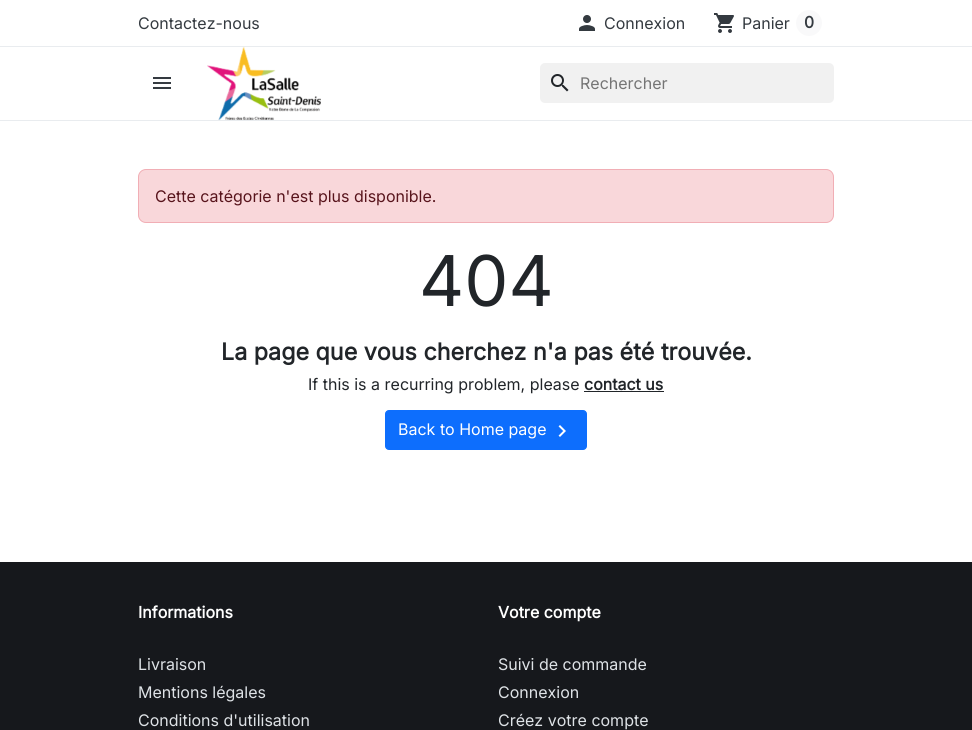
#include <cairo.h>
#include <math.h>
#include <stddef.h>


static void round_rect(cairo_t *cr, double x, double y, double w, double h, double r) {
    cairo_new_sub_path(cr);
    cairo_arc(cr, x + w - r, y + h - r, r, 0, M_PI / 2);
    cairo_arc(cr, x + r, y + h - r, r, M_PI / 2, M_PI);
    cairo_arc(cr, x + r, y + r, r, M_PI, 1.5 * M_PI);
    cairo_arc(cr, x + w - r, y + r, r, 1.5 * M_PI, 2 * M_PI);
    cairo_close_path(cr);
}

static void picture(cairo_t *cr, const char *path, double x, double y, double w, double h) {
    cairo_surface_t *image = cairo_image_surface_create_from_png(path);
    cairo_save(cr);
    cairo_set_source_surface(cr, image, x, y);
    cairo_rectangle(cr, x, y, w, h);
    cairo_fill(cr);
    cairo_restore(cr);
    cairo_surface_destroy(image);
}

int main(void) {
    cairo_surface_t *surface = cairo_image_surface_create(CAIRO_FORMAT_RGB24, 972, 730);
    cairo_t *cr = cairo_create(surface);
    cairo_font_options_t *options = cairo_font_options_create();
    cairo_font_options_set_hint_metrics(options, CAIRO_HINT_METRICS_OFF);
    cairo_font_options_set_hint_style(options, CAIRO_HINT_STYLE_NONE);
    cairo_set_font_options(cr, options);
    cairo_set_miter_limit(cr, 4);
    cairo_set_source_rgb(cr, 1, 1, 1);
    cairo_paint(cr);
    cairo_set_source_rgb(cr, 0.914, 0.925, 0.937);
    cairo_rectangle(cr, 0, 46, 972, 1);
    cairo_fill(cr);
    cairo_select_font_face(cr, "Inter", CAIRO_FONT_SLANT_NORMAL, CAIRO_FONT_WEIGHT_NORMAL);
    cairo_set_font_size(cr, 16);
    cairo_set_source_rgb(cr, 0.204, 0.227, 0.251);
    cairo_move_to(cr, 138, 29);
    cairo_show_text(cr, "Contactez-nous");
    picture(cr, "img1.png", 579, 15, 16, 16);
    cairo_move_to(cr, 604, 29);
    cairo_show_text(cr, "Connexion");
    picture(cr, "img2.png", 714, 13, 20, 20);
    cairo_move_to(cr, 742, 29);
    cairo_show_text(cr, "Panier");
    cairo_set_source_rgb(cr, 0.973, 0.976, 0.98);
    cairo_new_path(cr);
    cairo_arc(cr, 809, 23, 13, 0, 2 * M_PI);
    cairo_fill(cr);
    cairo_select_font_face(cr, "Inter", CAIRO_FONT_SLANT_NORMAL, CAIRO_FONT_WEIGHT_BOLD);
    cairo_set_source_rgb(cr, 0.204, 0.227, 0.251);
    cairo_move_to(cr, 804, 28);
    cairo_show_text(cr, "0");
    cairo_set_source_rgb(cr, 0.914, 0.925, 0.937);
    cairo_rectangle(cr, 0, 120, 972, 1);
    cairo_fill(cr);
    picture(cr, "img3.png", 153, 77, 18, 12);
    picture(cr, "img4.png", 207, 47, 114, 73);
    cairo_set_source_rgb(cr, 0.945, 0.945, 0.945);
    round_rect(cr, 540, 63, 294, 40, 5);
    cairo_fill(cr);
    picture(cr, "img5.png", 551, 74, 18, 18);
    cairo_select_font_face(cr, "Inter", CAIRO_FONT_SLANT_NORMAL, CAIRO_FONT_WEIGHT_NORMAL);
    cairo_set_source_rgb(cr, 0.459, 0.459, 0.459);
    cairo_move_to(cr, 580, 89);
    cairo_show_text(cr, "Rechercher");
    cairo_set_source_rgb(cr, 0.973, 0.843, 0.855);
    round_rect(cr, 138.5, 169.5, 695, 53, 7.5);
    cairo_fill_preserve(cr);
    cairo_set_source_rgb(cr, 0.945, 0.682, 0.71);
    cairo_set_line_width(cr, 1);
    cairo_stroke(cr);
    cairo_set_source_rgb(cr, 0.345, 0.082, 0.11);
    cairo_move_to(cr, 155, 202);
    cairo_show_text(cr, "Cette catégorie n'est plus disponible.");
    cairo_set_font_size(cr, 70);
    cairo_set_source_rgb(cr, 0.129, 0.145, 0.161);
    cairo_move_to(cr, 419, 306);
    cairo_show_text(cr, "404");
    cairo_select_font_face(cr, "Inter", CAIRO_FONT_SLANT_NORMAL, CAIRO_FONT_WEIGHT_BOLD);
    cairo_set_font_size(cr, 23.3);
    cairo_move_to(cr, 221, 360);
    cairo_show_text(cr, "La page que vous cherchez n'a pas été trouvée.");
    cairo_select_font_face(cr, "Inter", CAIRO_FONT_SLANT_NORMAL, CAIRO_FONT_WEIGHT_NORMAL);
    cairo_set_font_size(cr, 16);
    cairo_move_to(cr, 308, 390);
    cairo_show_text(cr, "If this is a recurring problem, please");
    cairo_select_font_face(cr, "Inter", CAIRO_FONT_SLANT_NORMAL, CAIRO_FONT_WEIGHT_BOLD);
    cairo_move_to(cr, 584, 390);
    cairo_show_text(cr, "contact us");
    cairo_rectangle(cr, 584, 391, 80, 1);
    cairo_fill(cr);
    cairo_set_source_rgb(cr, 0.051, 0.431, 0.992);
    round_rect(cr, 385.5, 410.5, 201, 39, 3.5);
    cairo_fill_preserve(cr);
    cairo_stroke(cr);
    cairo_select_font_face(cr, "Inter", CAIRO_FONT_SLANT_NORMAL, CAIRO_FONT_WEIGHT_NORMAL);
    cairo_set_source_rgb(cr, 1, 1, 1);
    cairo_move_to(cr, 398, 435);
    cairo_show_text(cr, "Back to Home page");
    picture(cr, "img6.png", 558, 425, 8, 12);
    cairo_set_source_rgb(cr, 0.086, 0.094, 0.11);
    cairo_rectangle(cr, 0, 562, 972, 168);
    cairo_fill(cr);
    cairo_select_font_face(cr, "Inter", CAIRO_FONT_SLANT_NORMAL, CAIRO_FONT_WEIGHT_BOLD);
    cairo_set_source_rgb(cr, 1, 1, 1);
    cairo_move_to(cr, 138, 618);
    cairo_show_text(cr, "Informations");
    cairo_select_font_face(cr, "Inter", CAIRO_FONT_SLANT_NORMAL, CAIRO_FONT_WEIGHT_NORMAL);
    cairo_set_source_rgb(cr, 0.871, 0.886, 0.902);
    cairo_move_to(cr, 138, 670);
    cairo_show_text(cr, "Livraison");
    cairo_move_to(cr, 138, 698);
    cairo_show_text(cr, "Mentions légales");
    cairo_move_to(cr, 138, 726);
    cairo_show_text(cr, "Conditions d'utilisation");
    cairo_select_font_face(cr, "Inter", CAIRO_FONT_SLANT_NORMAL, CAIRO_FONT_WEIGHT_BOLD);
    cairo_set_source_rgb(cr, 1, 1, 1);
    cairo_move_to(cr, 498, 618);
    cairo_show_text(cr, "Votre compte");
    cairo_select_font_face(cr, "Inter", CAIRO_FONT_SLANT_NORMAL, CAIRO_FONT_WEIGHT_NORMAL);
    cairo_set_source_rgb(cr, 0.871, 0.886, 0.902);
    cairo_move_to(cr, 498, 670);
    cairo_show_text(cr, "Suivi de commande");
    cairo_move_to(cr, 498, 698);
    cairo_show_text(cr, "Connexion");
    cairo_move_to(cr, 498, 726);
    cairo_show_text(cr, "Créez votre compte");
    cairo_surface_write_to_png(surface, "page.png");
    cairo_font_options_destroy(options);
    cairo_destroy(cr);
    cairo_surface_destroy(surface);
    return 0;
}
